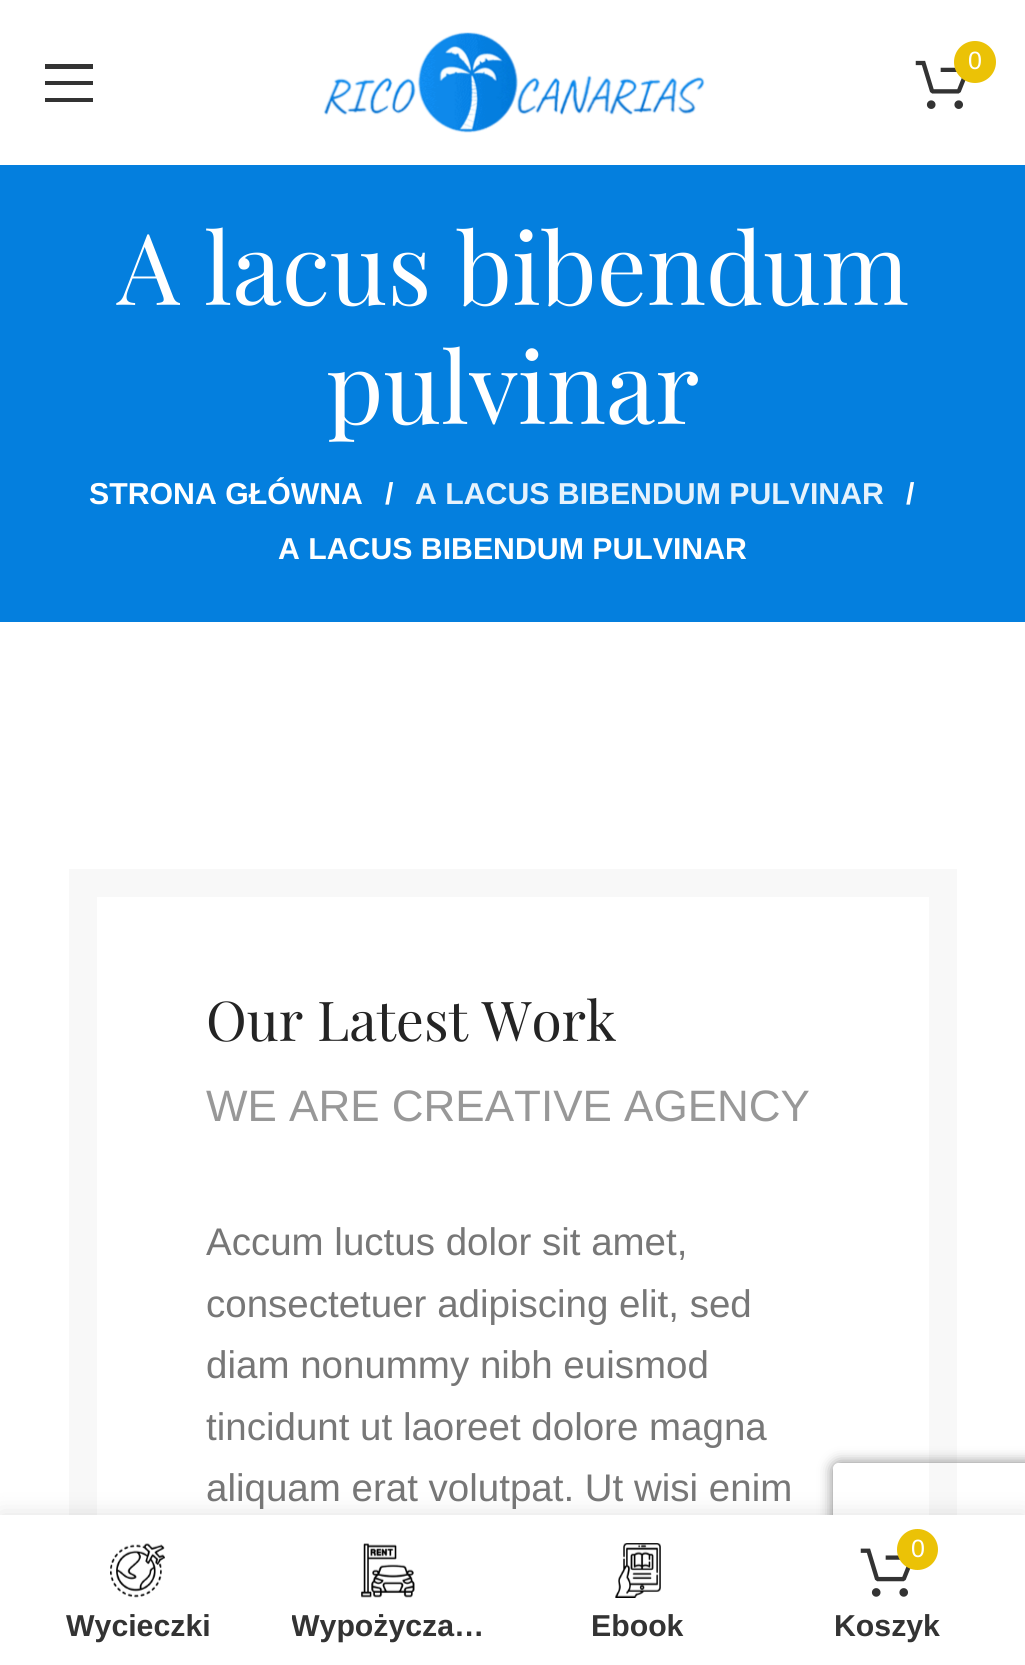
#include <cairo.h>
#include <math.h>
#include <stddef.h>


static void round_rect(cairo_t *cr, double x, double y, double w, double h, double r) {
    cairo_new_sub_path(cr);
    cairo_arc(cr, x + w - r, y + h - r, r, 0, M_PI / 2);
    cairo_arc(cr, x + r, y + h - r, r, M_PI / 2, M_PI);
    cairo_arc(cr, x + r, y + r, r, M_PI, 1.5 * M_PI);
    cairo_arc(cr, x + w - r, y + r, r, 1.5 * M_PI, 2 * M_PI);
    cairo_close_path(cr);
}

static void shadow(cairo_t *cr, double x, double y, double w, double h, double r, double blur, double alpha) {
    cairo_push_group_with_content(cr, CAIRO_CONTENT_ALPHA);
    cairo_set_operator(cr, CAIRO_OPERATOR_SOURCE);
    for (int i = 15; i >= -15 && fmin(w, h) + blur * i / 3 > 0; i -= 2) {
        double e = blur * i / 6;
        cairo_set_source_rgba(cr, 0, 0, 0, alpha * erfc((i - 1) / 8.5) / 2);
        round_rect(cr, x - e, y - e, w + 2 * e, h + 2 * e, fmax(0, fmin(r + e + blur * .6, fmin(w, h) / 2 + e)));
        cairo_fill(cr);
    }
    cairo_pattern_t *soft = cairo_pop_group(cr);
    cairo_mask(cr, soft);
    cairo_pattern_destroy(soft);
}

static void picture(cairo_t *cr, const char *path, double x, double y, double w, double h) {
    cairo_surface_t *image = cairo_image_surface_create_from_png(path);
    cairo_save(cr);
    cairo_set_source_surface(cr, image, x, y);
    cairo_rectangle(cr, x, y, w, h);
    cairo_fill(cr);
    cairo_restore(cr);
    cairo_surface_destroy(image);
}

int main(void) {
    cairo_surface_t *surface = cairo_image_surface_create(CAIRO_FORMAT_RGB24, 1025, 1665);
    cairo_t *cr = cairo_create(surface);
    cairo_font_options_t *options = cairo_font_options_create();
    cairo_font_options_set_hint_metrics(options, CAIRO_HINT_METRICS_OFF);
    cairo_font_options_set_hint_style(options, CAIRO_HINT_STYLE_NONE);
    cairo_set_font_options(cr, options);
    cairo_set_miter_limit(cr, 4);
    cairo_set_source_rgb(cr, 1, 1, 1);
    cairo_paint(cr);
    picture(cr, "img1.png", 323, 32, 382, 101);
    picture(cr, "img2.png", 915, 60, 51, 49);
    cairo_set_source_rgb(cr, 0.918, 0.761, 0.024);
    cairo_arc(cr, 975, 62, 21, 0, 2 * M_PI);
    cairo_fill(cr);
    cairo_select_font_face(cr, "Liberation Sans", CAIRO_FONT_SLANT_NORMAL, CAIRO_FONT_WEIGHT_NORMAL);
    cairo_set_font_size(cr, 25);
    cairo_set_source_rgb(cr, 1, 1, 1);
    cairo_move_to(cr, 968, 69);
    cairo_show_text(cr, "0");
    cairo_set_source_rgb(cr, 0.2, 0.2, 0.2);
    cairo_new_path(cr);
    cairo_move_to(cr, 45, 69);
    cairo_line_to(cr, 93, 69);
    cairo_line_to(cr, 93, 64);
    cairo_line_to(cr, 45, 64);
    cairo_close_path(cr);
    cairo_move_to(cr, 45, 85);
    cairo_line_to(cr, 93, 85);
    cairo_line_to(cr, 93, 81);
    cairo_line_to(cr, 45, 81);
    cairo_close_path(cr);
    cairo_move_to(cr, 45, 102);
    cairo_line_to(cr, 93, 102);
    cairo_line_to(cr, 93, 98);
    cairo_line_to(cr, 45, 98);
    cairo_close_path(cr);
    cairo_fill(cr);
    cairo_set_source_rgb(cr, 0.016, 0.498, 0.871);
    cairo_rectangle(cr, 0, 165, 1025, 457);
    cairo_fill(cr);
    cairo_select_font_face(cr, "Playfair Display", CAIRO_FONT_SLANT_NORMAL, CAIRO_FONT_WEIGHT_NORMAL);
    cairo_set_font_size(cr, 99);
    cairo_set_source_rgb(cr, 1, 1, 1);
    cairo_move_to(cr, 117, 305);
    cairo_show_text(cr, "A lacus bibendum");
    cairo_move_to(cr, 326, 424);
    cairo_show_text(cr, "pulvinar");
    cairo_select_font_face(cr, "Liberation Sans", CAIRO_FONT_SLANT_NORMAL, CAIRO_FONT_WEIGHT_BOLD);
    cairo_set_font_size(cr, 30.25);
    cairo_move_to(cr, 89, 504);
    cairo_show_text(cr, "STRONA GŁÓWNA");
    cairo_move_to(cr, 385, 504);
    cairo_show_text(cr, "/");
    cairo_set_source_rgb(cr, 0.902, 0.949, 0.988);
    cairo_move_to(cr, 415, 504);
    cairo_show_text(cr, "A LACUS BIBENDUM PULVINAR");
    cairo_set_source_rgb(cr, 1, 1, 1);
    cairo_move_to(cr, 906, 504);
    cairo_show_text(cr, "/");
    cairo_move_to(cr, 278, 559);
    cairo_show_text(cr, "A LACUS BIBENDUM PULVINAR");
    cairo_rectangle(cr, 83, 883, 860, 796);
    cairo_set_source_rgb(cr, 0.969, 0.969, 0.969);
    cairo_set_line_width(cr, 28);
    cairo_stroke(cr);
    cairo_select_font_face(cr, "Playfair Display", CAIRO_FONT_SLANT_NORMAL, CAIRO_FONT_WEIGHT_NORMAL);
    cairo_set_font_size(cr, 55);
    cairo_set_source_rgb(cr, 0.141, 0.141, 0.141);
    cairo_move_to(cr, 206, 1041);
    cairo_show_text(cr, "Our Latest Work");
    cairo_select_font_face(cr, "Liberation Sans", CAIRO_FONT_SLANT_NORMAL, CAIRO_FONT_WEIGHT_NORMAL);
    cairo_set_font_size(cr, 44);
    cairo_set_source_rgb(cr, 0.596, 0.596, 0.596);
    cairo_move_to(cr, 206, 1121);
    cairo_show_text(cr, "WE ARE CREATIVE AGENCY");
    cairo_set_font_size(cr, 38.5);
    cairo_set_source_rgb(cr, 0.467, 0.467, 0.467);
    cairo_move_to(cr, 206, 1255);
    cairo_show_text(cr, "Accum luctus dolor sit amet,");
    cairo_move_to(cr, 206, 1317);
    cairo_show_text(cr, "consectetuer adipiscing elit, sed");
    cairo_move_to(cr, 206, 1378);
    cairo_show_text(cr, "diam nonummy nibh euismod");
    cairo_move_to(cr, 206, 1440);
    cairo_show_text(cr, "tincidunt ut laoreet dolore magna");
    cairo_move_to(cr, 206, 1501);
    cairo_show_text(cr, "aliquam erat volutpat. Ut wisi enim");
    cairo_save(cr);
    cairo_set_fill_rule(cr, CAIRO_FILL_RULE_EVEN_ODD);
    cairo_new_path(cr);
    cairo_move_to(cr, 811, 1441);
    cairo_line_to(cr, 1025, 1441);
    cairo_line_to(cr, 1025, 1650);
    cairo_line_to(cr, 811, 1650);
    cairo_close_path(cr);
    cairo_move_to(cr, 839, 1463);
    cairo_line_to(cr, 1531, 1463);
    cairo_curve_to(cr, 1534.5, 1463, 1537, 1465.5, 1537, 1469);
    cairo_line_to(cr, 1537, 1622);
    cairo_curve_to(cr, 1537, 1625.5, 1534.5, 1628, 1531, 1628);
    cairo_line_to(cr, 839, 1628);
    cairo_curve_to(cr, 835.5, 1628, 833, 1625.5, 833, 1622);
    cairo_line_to(cr, 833, 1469);
    cairo_curve_to(cr, 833, 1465.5, 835.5, 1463, 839, 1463);
    cairo_close_path(cr);
    cairo_clip(cr);
    cairo_set_source_rgb(cr, 0.502, 0.502, 0.502);
    shadow(cr, 833, 1463, 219, 165, 6, 7, 1);
    cairo_restore(cr);
    cairo_set_source_rgb(cr, 0, 0, 0);
    shadow(cr, 0, 1515, 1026, 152, 0, 12.5, 0.12);
    cairo_set_source_rgb(cr, 1, 1, 1);
    cairo_rectangle(cr, 0, 1515, 1025, 150);
    cairo_fill(cr);
    picture(cr, "img3.png", 110, 1543, 55, 55);
    cairo_select_font_face(cr, "Liberation Sans", CAIRO_FONT_SLANT_NORMAL, CAIRO_FONT_WEIGHT_BOLD);
    cairo_set_font_size(cr, 30.25);
    cairo_set_source_rgb(cr, 0.2, 0.2, 0.2);
    cairo_move_to(cr, 66, 1636);
    cairo_show_text(cr, "Wycieczki");
    picture(cr, "img4.png", 361, 1543, 54, 55);
    cairo_save(cr);
    cairo_rectangle(cr, 292, 1609, 195, 36);
    cairo_clip(cr);
    cairo_move_to(cr, 291, 1636);
    cairo_show_text(cr, "Wypożycza…");
    cairo_restore(cr);
    picture(cr, "img5.png", 615, 1543, 46, 55);
    cairo_move_to(cr, 591, 1636);
    cairo_show_text(cr, "Ebook");
    picture(cr, "img6.png", 860, 1548, 51, 49);
    cairo_set_source_rgb(cr, 0.918, 0.761, 0.024);
    cairo_arc(cr, 917.5, 1549.5, 20.5, 0, 2 * M_PI);
    cairo_fill(cr);
    cairo_select_font_face(cr, "Liberation Sans", CAIRO_FONT_SLANT_NORMAL, CAIRO_FONT_WEIGHT_NORMAL);
    cairo_set_font_size(cr, 25);
    cairo_set_source_rgb(cr, 1, 1, 1);
    cairo_move_to(cr, 911, 1557);
    cairo_show_text(cr, "0");
    cairo_select_font_face(cr, "Liberation Sans", CAIRO_FONT_SLANT_NORMAL, CAIRO_FONT_WEIGHT_BOLD);
    cairo_set_font_size(cr, 30.25);
    cairo_set_source_rgb(cr, 0.2, 0.2, 0.2);
    cairo_move_to(cr, 834, 1636);
    cairo_show_text(cr, "Koszyk");
    cairo_surface_write_to_png(surface, "page.png");
    cairo_font_options_destroy(options);
    cairo_destroy(cr);
    cairo_surface_destroy(surface);
    return 0;
}
